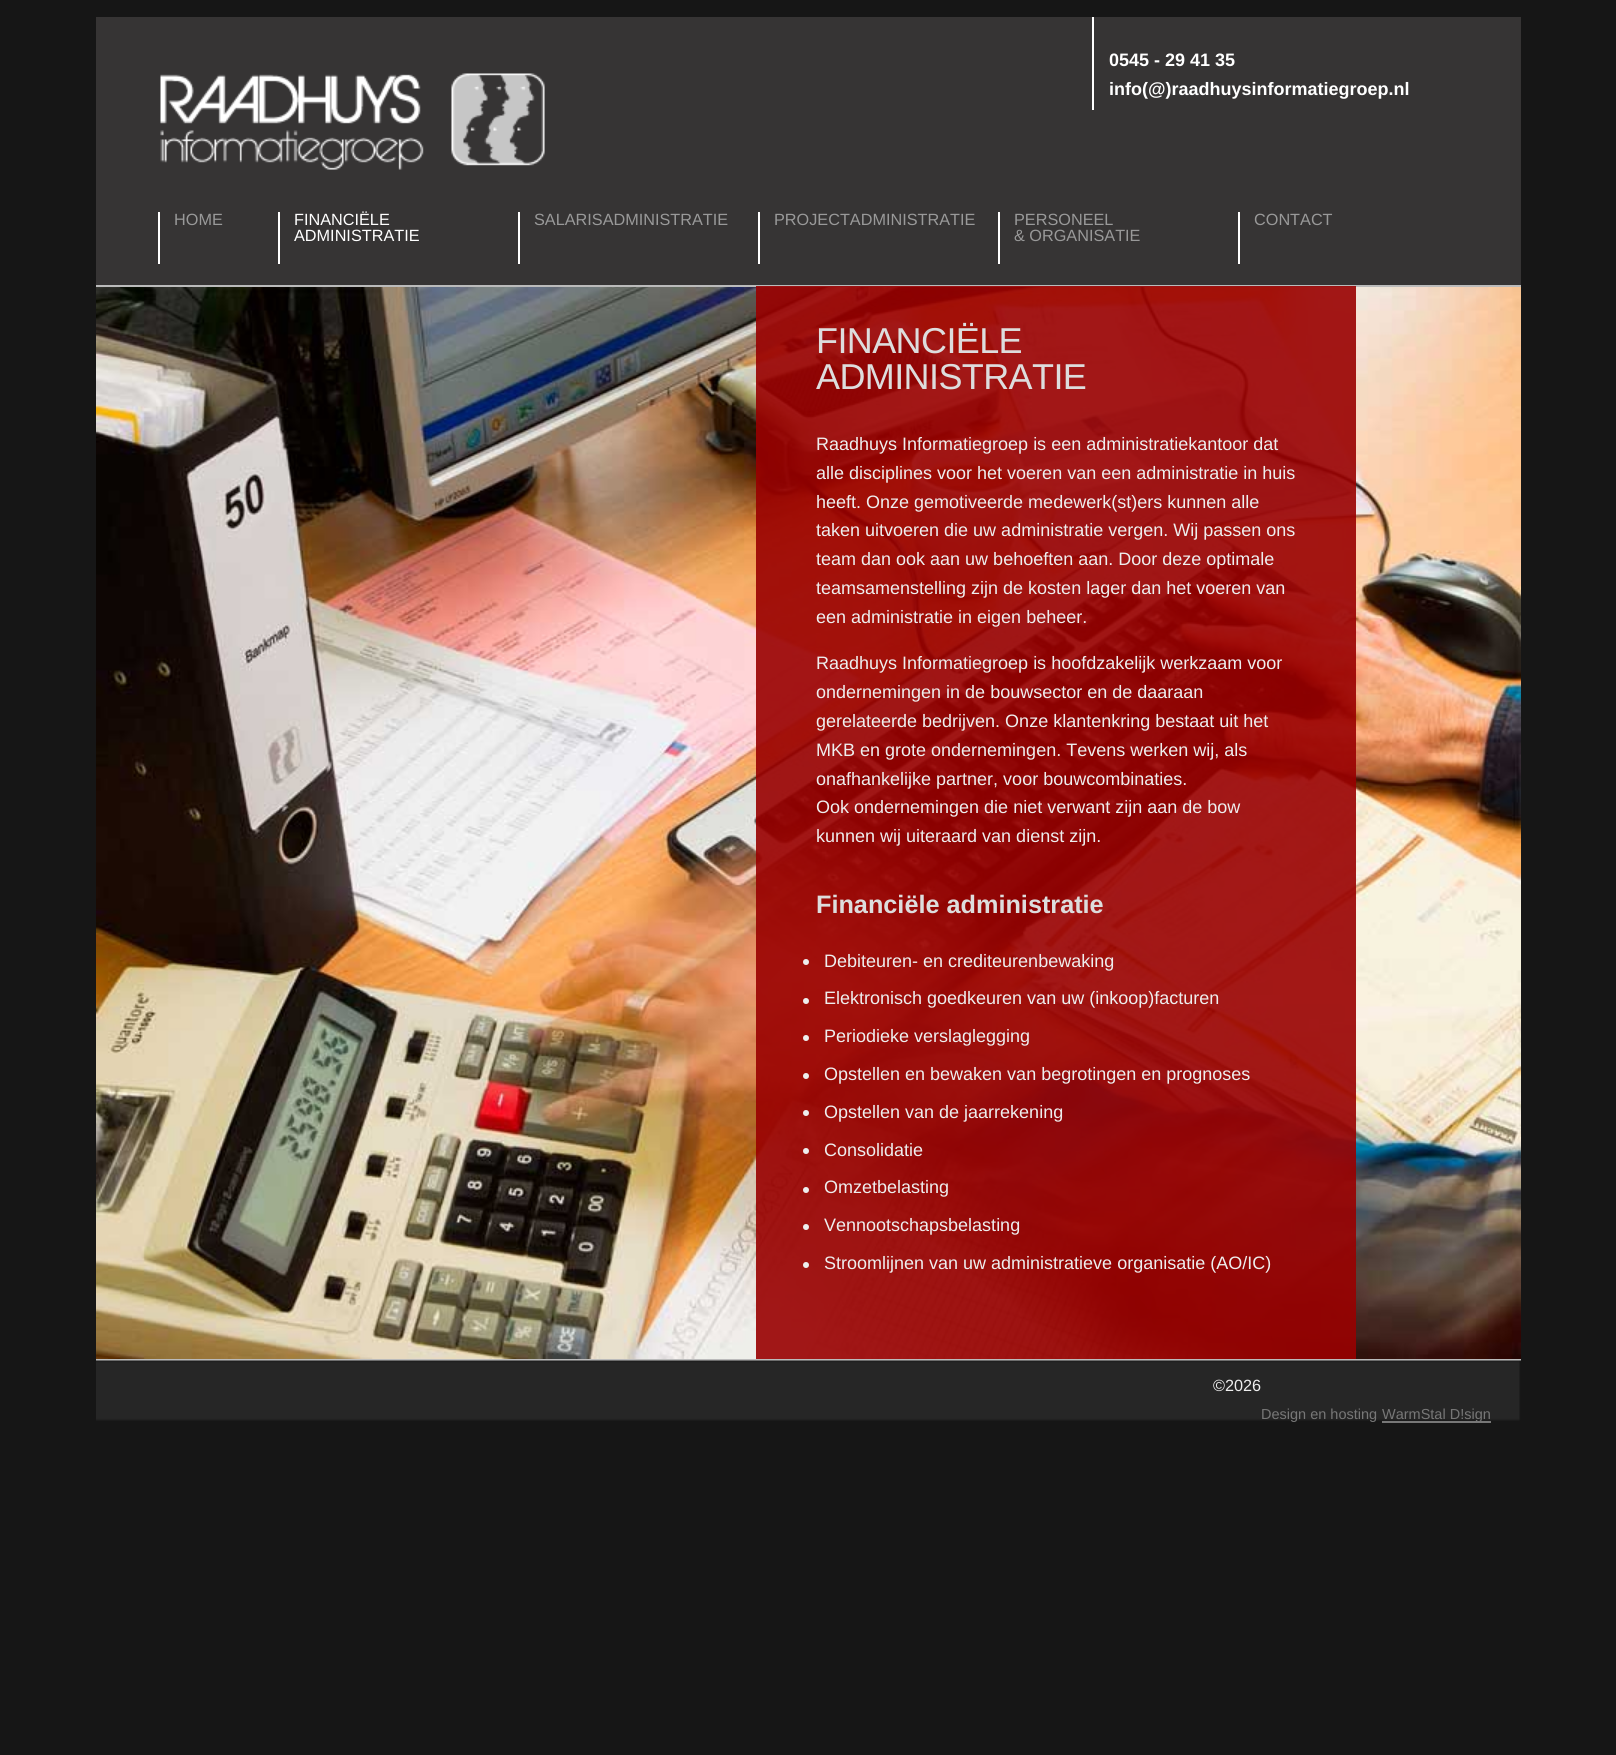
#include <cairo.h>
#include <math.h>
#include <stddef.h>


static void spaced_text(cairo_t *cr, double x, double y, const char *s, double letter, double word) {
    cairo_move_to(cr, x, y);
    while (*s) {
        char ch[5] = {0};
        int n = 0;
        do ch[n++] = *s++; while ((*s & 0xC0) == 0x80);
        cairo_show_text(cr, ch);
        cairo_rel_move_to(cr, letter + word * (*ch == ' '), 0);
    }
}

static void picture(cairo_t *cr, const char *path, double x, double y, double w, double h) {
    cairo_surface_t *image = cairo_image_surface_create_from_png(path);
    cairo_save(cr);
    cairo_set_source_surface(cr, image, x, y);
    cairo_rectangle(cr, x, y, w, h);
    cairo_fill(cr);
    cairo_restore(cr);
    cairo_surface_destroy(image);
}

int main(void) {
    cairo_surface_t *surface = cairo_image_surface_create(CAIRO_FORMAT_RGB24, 1616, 1755);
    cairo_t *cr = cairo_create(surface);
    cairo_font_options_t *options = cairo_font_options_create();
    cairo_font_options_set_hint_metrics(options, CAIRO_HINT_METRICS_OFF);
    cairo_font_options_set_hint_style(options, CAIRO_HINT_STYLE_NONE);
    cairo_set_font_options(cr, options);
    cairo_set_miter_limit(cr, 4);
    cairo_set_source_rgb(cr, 0.086, 0.086, 0.086);
    cairo_paint(cr);
    cairo_set_source_rgb(cr, 0.212, 0.204, 0.204);
    cairo_rectangle(cr, 96, 17, 1425, 268);
    cairo_fill(cr);
    picture(cr, "img1.png", 160, 73, 385, 97);
    cairo_set_source_rgb(cr, 1, 1, 1);
    cairo_rectangle(cr, 1092, 17, 2, 93);
    cairo_fill(cr);
    cairo_select_font_face(cr, "Liberation Sans", CAIRO_FONT_SLANT_NORMAL, CAIRO_FONT_WEIGHT_BOLD);
    cairo_set_font_size(cr, 18);
    cairo_move_to(cr, 1109, 66);
    cairo_show_text(cr, "0545 - 29 41 35");
    cairo_move_to(cr, 1109, 95);
    cairo_show_text(cr, "info(@)raadhuysinformatiegroep.nl");
    cairo_rectangle(cr, 158, 212, 2, 52);
    cairo_fill(cr);
    cairo_select_font_face(cr, "Liberation Sans", CAIRO_FONT_SLANT_NORMAL, CAIRO_FONT_WEIGHT_NORMAL);
    cairo_set_font_size(cr, 16.25);
    cairo_set_source_rgb(cr, 0.6, 0.6, 0.6);
    cairo_move_to(cr, 174, 225);
    cairo_show_text(cr, "HOME");
    cairo_set_source_rgb(cr, 1, 1, 1);
    cairo_rectangle(cr, 278, 212, 2, 52);
    cairo_fill(cr);
    cairo_move_to(cr, 294, 225);
    cairo_show_text(cr, "FINANCIËLE");
    cairo_move_to(cr, 294, 241);
    cairo_show_text(cr, "ADMINISTRATIE");
    cairo_rectangle(cr, 518, 212, 2, 52);
    cairo_fill(cr);
    cairo_set_source_rgb(cr, 0.6, 0.6, 0.6);
    cairo_move_to(cr, 534, 225);
    cairo_show_text(cr, "SALARISADMINISTRATIE");
    cairo_set_source_rgb(cr, 1, 1, 1);
    cairo_rectangle(cr, 758, 212, 2, 52);
    cairo_fill(cr);
    cairo_set_source_rgb(cr, 0.6, 0.6, 0.6);
    cairo_move_to(cr, 774, 225);
    cairo_show_text(cr, "PROJECTADMINISTRATIE");
    cairo_set_source_rgb(cr, 1, 1, 1);
    cairo_rectangle(cr, 998, 212, 2, 52);
    cairo_fill(cr);
    cairo_set_source_rgb(cr, 0.6, 0.6, 0.6);
    cairo_move_to(cr, 1014, 225);
    cairo_show_text(cr, "PERSONEEL");
    cairo_move_to(cr, 1014, 241);
    cairo_show_text(cr, "& ORGANISATIE");
    cairo_set_source_rgb(cr, 1, 1, 1);
    cairo_rectangle(cr, 1238, 212, 2, 52);
    cairo_fill(cr);
    cairo_set_source_rgb(cr, 0.6, 0.6, 0.6);
    cairo_move_to(cr, 1254, 225);
    cairo_show_text(cr, "CONTACT");
    picture(cr, "img2.png", 96, 287, 1425, 1072);
    cairo_set_source_rgb(cr, 0.733, 0.733, 0.733);
    cairo_rectangle(cr, 96, 285, 1425, 2);
    cairo_fill(cr);
    cairo_rectangle(cr, 96, 1359, 1425, 2);
    cairo_fill(cr);
    cairo_set_source_rgba(cr, 0.6, 0, 0, 0.9);
    cairo_rectangle(cr, 756, 286, 600, 1073);
    cairo_fill(cr);
    cairo_set_font_size(cr, 36);
    cairo_set_source_rgb(cr, 0.867, 0.867, 0.867);
    spaced_text(cr, 816, 353, "FINANCIËLE", -0.6, 0);
    spaced_text(cr, 816, 389, "ADMINISTRATIE", -0.6, 0);
    cairo_set_font_size(cr, 18);
    cairo_set_source_rgb(cr, 0.933, 0.933, 0.933);
    cairo_move_to(cr, 816, 450);
    cairo_show_text(cr, "Raadhuys Informatiegroep is een administratiekantoor dat");
    cairo_move_to(cr, 816, 479);
    cairo_show_text(cr, "alle disciplines voor het voeren van een administratie in huis");
    cairo_move_to(cr, 816, 508);
    cairo_show_text(cr, "heeft. Onze gemotiveerde medewerk(st)ers kunnen alle");
    cairo_move_to(cr, 816, 536);
    cairo_show_text(cr, "taken uitvoeren die uw administratie vergen. Wij passen ons");
    cairo_move_to(cr, 816, 565);
    cairo_show_text(cr, "team dan ook aan uw behoeften aan. Door deze optimale");
    cairo_move_to(cr, 816, 594);
    cairo_show_text(cr, "teamsamenstelling zijn de kosten lager dan het voeren van");
    cairo_move_to(cr, 816, 623);
    cairo_show_text(cr, "een administratie in eigen beheer.");
    cairo_move_to(cr, 816, 669);
    cairo_show_text(cr, "Raadhuys Informatiegroep is hoofdzakelijk werkzaam voor");
    cairo_move_to(cr, 816, 698);
    cairo_show_text(cr, "ondernemingen in de bouwsector en de daaraan");
    cairo_move_to(cr, 816, 727);
    cairo_show_text(cr, "gerelateerde bedrijven. Onze klantenkring bestaat uit het");
    cairo_move_to(cr, 816, 756);
    cairo_show_text(cr, "MKB en grote ondernemingen. Tevens werken wij, als");
    cairo_move_to(cr, 816, 785);
    cairo_show_text(cr, "onafhankelijke partner, voor bouwcombinaties.");
    cairo_move_to(cr, 816, 813);
    cairo_show_text(cr, "Ook ondernemingen die niet verwant zijn aan de bow");
    cairo_move_to(cr, 816, 842);
    cairo_show_text(cr, "kunnen wij uiteraard van dienst zijn.");
    cairo_select_font_face(cr, "Liberation Sans", CAIRO_FONT_SLANT_NORMAL, CAIRO_FONT_WEIGHT_BOLD);
    cairo_set_font_size(cr, 25.25);
    cairo_set_source_rgb(cr, 0.867, 0.867, 0.867);
    cairo_move_to(cr, 816, 913);
    cairo_show_text(cr, "Financiële administratie");
    cairo_set_source_rgb(cr, 0.933, 0.933, 0.933);
    cairo_new_path(cr);
    cairo_arc(cr, 806, 962, 3, 0, 2 * M_PI);
    cairo_fill(cr);
    cairo_select_font_face(cr, "Liberation Sans", CAIRO_FONT_SLANT_NORMAL, CAIRO_FONT_WEIGHT_NORMAL);
    cairo_set_font_size(cr, 18);
    cairo_move_to(cr, 824, 967);
    cairo_show_text(cr, "Debiteuren- en crediteurenbewaking");
    cairo_new_path(cr);
    cairo_arc(cr, 806, 1001, 3, 0, 2 * M_PI);
    cairo_fill(cr);
    cairo_move_to(cr, 824, 1004);
    cairo_show_text(cr, "Elektronisch goedkeuren van uw (inkoop)facturen");
    cairo_new_path(cr);
    cairo_arc(cr, 806, 1038, 3, 0, 2 * M_PI);
    cairo_fill(cr);
    cairo_move_to(cr, 824, 1042);
    cairo_show_text(cr, "Periodieke verslaglegging");
    cairo_new_path(cr);
    cairo_arc(cr, 806, 1076, 3, 0, 2 * M_PI);
    cairo_fill(cr);
    cairo_move_to(cr, 824, 1080);
    cairo_show_text(cr, "Opstellen en bewaken van begrotingen en prognoses");
    cairo_new_path(cr);
    cairo_arc(cr, 806, 1113, 3, 0, 2 * M_PI);
    cairo_fill(cr);
    cairo_move_to(cr, 824, 1118);
    cairo_show_text(cr, "Opstellen van de jaarrekening");
    cairo_new_path(cr);
    cairo_arc(cr, 806, 1151, 3, 0, 2 * M_PI);
    cairo_fill(cr);
    cairo_move_to(cr, 824, 1156);
    cairo_show_text(cr, "Consolidatie");
    cairo_new_path(cr);
    cairo_arc(cr, 806, 1190, 3, 0, 2 * M_PI);
    cairo_fill(cr);
    cairo_move_to(cr, 824, 1193);
    cairo_show_text(cr, "Omzetbelasting");
    cairo_new_path(cr);
    cairo_arc(cr, 806, 1227, 3, 0, 2 * M_PI);
    cairo_fill(cr);
    cairo_move_to(cr, 824, 1231);
    cairo_show_text(cr, "Vennootschapsbelasting");
    cairo_new_path(cr);
    cairo_arc(cr, 806, 1265, 3, 0, 2 * M_PI);
    cairo_fill(cr);
    cairo_move_to(cr, 824, 1269);
    cairo_show_text(cr, "Stroomlijnen van uw administratieve organisatie (AO/IC)");
    picture(cr, "img3.png", 96, 1360, 1425, 61);
    cairo_set_font_size(cr, 16.25);
    cairo_move_to(cr, 1213, 1391);
    cairo_show_text(cr, "©2026");
    cairo_set_font_size(cr, 14.5);
    cairo_set_source_rgb(cr, 0.467, 0.467, 0.467);
    cairo_move_to(cr, 1261, 1419);
    cairo_show_text(cr, "Design en hosting");
    cairo_rectangle(cr, 1382, 1421, 109, 2);
    cairo_fill(cr);
    cairo_move_to(cr, 1382, 1419);
    cairo_show_text(cr, "WarmStal D!sign");
    cairo_surface_write_to_png(surface, "page.png");
    cairo_font_options_destroy(options);
    cairo_destroy(cr);
    cairo_surface_destroy(surface);
    return 0;
}
